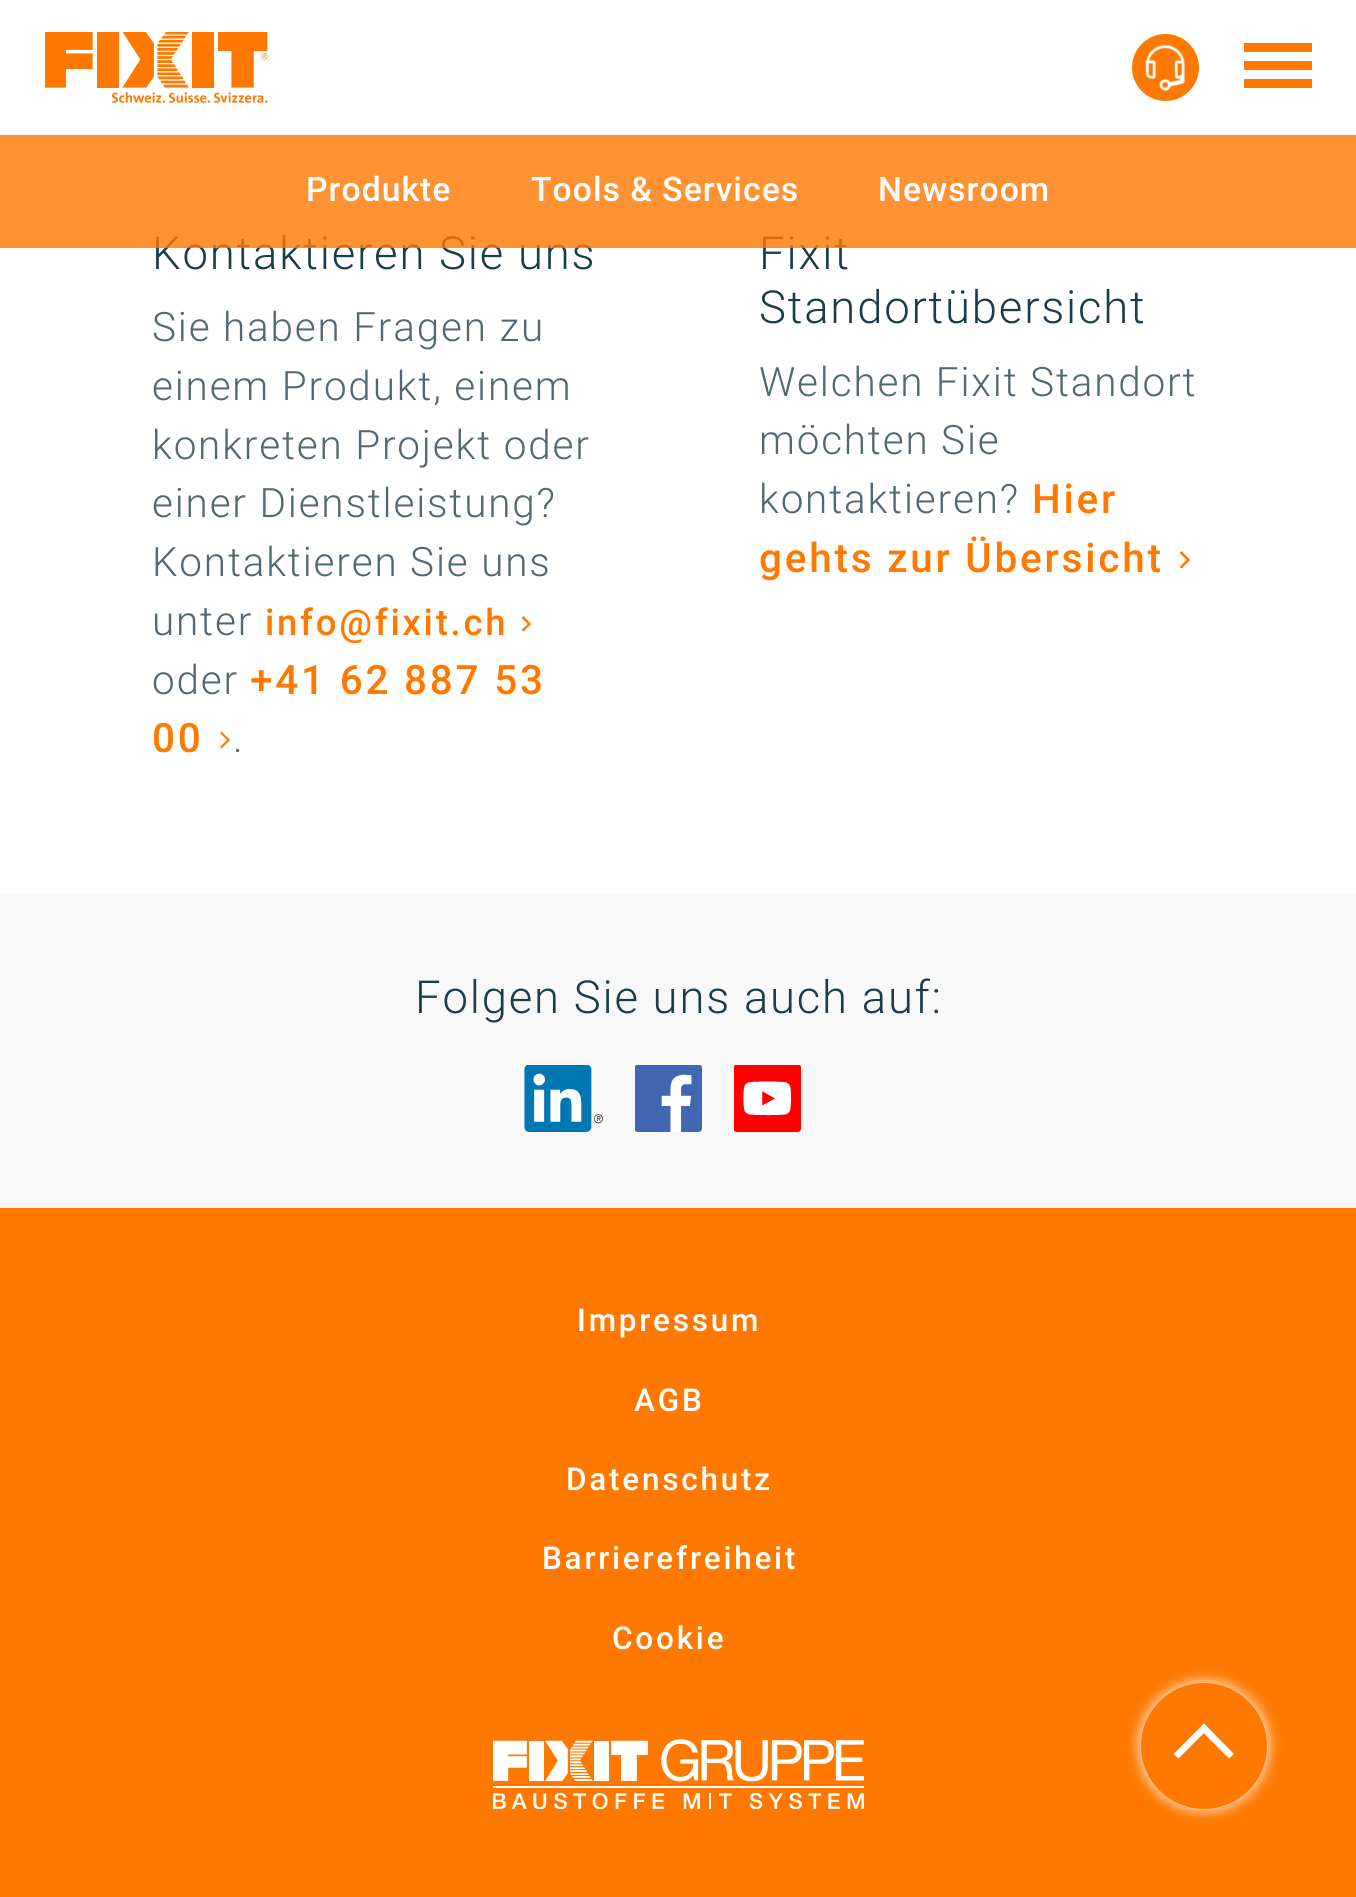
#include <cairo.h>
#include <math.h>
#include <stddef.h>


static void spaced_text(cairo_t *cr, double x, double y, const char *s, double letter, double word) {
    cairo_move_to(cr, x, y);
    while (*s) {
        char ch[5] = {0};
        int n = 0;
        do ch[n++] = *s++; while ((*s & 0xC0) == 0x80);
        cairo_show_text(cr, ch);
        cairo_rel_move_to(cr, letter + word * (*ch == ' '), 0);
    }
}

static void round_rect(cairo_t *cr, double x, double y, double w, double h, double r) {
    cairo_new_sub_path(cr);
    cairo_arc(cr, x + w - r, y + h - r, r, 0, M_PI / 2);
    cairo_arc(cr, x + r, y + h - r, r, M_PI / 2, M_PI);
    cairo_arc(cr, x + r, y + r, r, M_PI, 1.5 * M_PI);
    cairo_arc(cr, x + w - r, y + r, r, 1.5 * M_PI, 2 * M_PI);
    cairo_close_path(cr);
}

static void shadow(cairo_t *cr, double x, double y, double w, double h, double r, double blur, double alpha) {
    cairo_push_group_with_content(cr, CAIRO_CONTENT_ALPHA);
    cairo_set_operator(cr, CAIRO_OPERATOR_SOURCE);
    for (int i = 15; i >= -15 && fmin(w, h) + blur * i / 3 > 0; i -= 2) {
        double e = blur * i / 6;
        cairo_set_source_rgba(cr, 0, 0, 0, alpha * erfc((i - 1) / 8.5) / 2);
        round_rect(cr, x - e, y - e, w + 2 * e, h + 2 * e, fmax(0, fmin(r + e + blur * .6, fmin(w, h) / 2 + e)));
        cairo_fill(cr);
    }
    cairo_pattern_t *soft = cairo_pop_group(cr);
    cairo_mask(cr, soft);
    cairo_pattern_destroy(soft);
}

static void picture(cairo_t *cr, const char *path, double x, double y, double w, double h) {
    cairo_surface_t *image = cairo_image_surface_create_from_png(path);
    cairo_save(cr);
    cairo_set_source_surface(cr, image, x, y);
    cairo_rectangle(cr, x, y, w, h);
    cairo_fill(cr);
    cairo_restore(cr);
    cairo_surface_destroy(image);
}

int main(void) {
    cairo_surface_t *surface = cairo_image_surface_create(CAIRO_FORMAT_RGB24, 1356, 1897);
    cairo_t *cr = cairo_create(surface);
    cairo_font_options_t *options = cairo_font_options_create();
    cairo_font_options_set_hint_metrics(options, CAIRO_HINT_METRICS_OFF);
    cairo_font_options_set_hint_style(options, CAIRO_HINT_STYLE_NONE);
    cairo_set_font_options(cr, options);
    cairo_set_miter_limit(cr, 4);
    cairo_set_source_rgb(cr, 1, 1, 1);
    cairo_paint(cr);
    picture(cr, "img1.png", 45, 32, 223, 71);
    cairo_set_source_rgb(cr, 1, 0.471, 0);
    cairo_arc(cr, 1165.5, 67.5, 33.5, 0, 2 * M_PI);
    cairo_fill(cr);
    picture(cr, "img2.png", 1145, 44, 40, 47);
    cairo_rectangle(cr, 1244, 43, 68, 9);
    cairo_fill(cr);
    cairo_rectangle(cr, 1244, 61, 68, 9);
    cairo_fill(cr);
    cairo_rectangle(cr, 1244, 79, 68, 9);
    cairo_fill(cr);
    cairo_select_font_face(cr, "Roboto Light", CAIRO_FONT_SLANT_NORMAL, CAIRO_FONT_WEIGHT_NORMAL);
    cairo_set_font_size(cr, 45.5);
    cairo_set_source_rgb(cr, 0.11, 0.235, 0.29);
    spaced_text(cr, 152, 269, "Kontaktieren Sie uns", 1.8, 0);
    spaced_text(cr, 759, 269, "Fixit", 1.8, 0);
    cairo_set_source_rgba(cr, 1, 0.471, 0, 0.8);
    cairo_rectangle(cr, 0, 135, 1356, 113);
    cairo_fill(cr);
    cairo_select_font_face(cr, "Roboto Medium", CAIRO_FONT_SLANT_NORMAL, CAIRO_FONT_WEIGHT_NORMAL);
    cairo_set_font_size(cr, 33.75);
    cairo_set_source_rgb(cr, 1, 1, 1);
    spaced_text(cr, 306, 201, "Produkte", 1, 0);
    spaced_text(cr, 531, 201, "Tools & Services", 1, 0);
    spaced_text(cr, 878, 201, "Newsroom", 1, 0);
    cairo_select_font_face(cr, "Roboto Light", CAIRO_FONT_SLANT_NORMAL, CAIRO_FONT_WEIGHT_NORMAL);
    cairo_set_font_size(cr, 40.5);
    cairo_set_source_rgb(cr, 0.318, 0.404, 0.443);
    spaced_text(cr, 152, 341, "Sie haben Fragen zu", 1.8, 0);
    spaced_text(cr, 152, 400, "einem Produkt, einem", 1.8, 0);
    spaced_text(cr, 152, 459, "konkreten Projekt oder", 1.8, 0);
    spaced_text(cr, 152, 517, "einer Dienstleistung?", 1.8, 0);
    spaced_text(cr, 152, 576, "Kontaktieren Sie uns", 1.8, 0);
    spaced_text(cr, 152, 635, "unter", 1.8, 0);
    cairo_select_font_face(cr, "Roboto Medium", CAIRO_FONT_SLANT_NORMAL, CAIRO_FONT_WEIGHT_NORMAL);
    cairo_set_font_size(cr, 36.5);
    cairo_set_source_rgb(cr, 1, 0.471, 0);
    spaced_text(cr, 265, 635, "info@fixit.ch", 2.75, 0);
    cairo_new_path(cr);
    cairo_move_to(cr, 523.5, 616);
    cairo_line_to(cr, 531, 624);
    cairo_line_to(cr, 529.5, 625.5);
    cairo_line_to(cr, 521.5, 618);
    cairo_close_path(cr);
    cairo_fill(cr);
    cairo_new_path(cr);
    cairo_move_to(cr, 529.5, 622.5);
    cairo_line_to(cr, 531, 624);
    cairo_line_to(cr, 523.5, 631.5);
    cairo_line_to(cr, 521.5, 630);
    cairo_close_path(cr);
    cairo_fill(cr);
    cairo_select_font_face(cr, "Roboto Light", CAIRO_FONT_SLANT_NORMAL, CAIRO_FONT_WEIGHT_NORMAL);
    cairo_set_font_size(cr, 40.5);
    cairo_set_source_rgb(cr, 0.318, 0.404, 0.443);
    spaced_text(cr, 152, 694, "oder", 1.8, 0);
    cairo_select_font_face(cr, "Roboto Medium", CAIRO_FONT_SLANT_NORMAL, CAIRO_FONT_WEIGHT_NORMAL);
    cairo_set_source_rgb(cr, 1, 0.471, 0);
    spaced_text(cr, 250, 694, "+41 62 887 53", 2.75, 0);
    spaced_text(cr, 152, 752, "00", 2.75, 0);
    cairo_new_path(cr);
    cairo_move_to(cr, 221.5, 731.5);
    cairo_line_to(cr, 230, 740);
    cairo_line_to(cr, 228.5, 741.5);
    cairo_line_to(cr, 220, 733);
    cairo_close_path(cr);
    cairo_fill(cr);
    cairo_new_path(cr);
    cairo_move_to(cr, 228.5, 738.5);
    cairo_line_to(cr, 230, 740);
    cairo_line_to(cr, 221.5, 748.5);
    cairo_line_to(cr, 220, 747);
    cairo_close_path(cr);
    cairo_fill(cr);
    cairo_select_font_face(cr, "Roboto Light", CAIRO_FONT_SLANT_NORMAL, CAIRO_FONT_WEIGHT_NORMAL);
    cairo_set_source_rgb(cr, 0.318, 0.404, 0.443);
    spaced_text(cr, 233, 752, ".", 1.8, 0);
    cairo_set_font_size(cr, 45.5);
    cairo_set_source_rgb(cr, 0.11, 0.235, 0.29);
    spaced_text(cr, 759, 323, "Standortübersicht", 1.8, 0);
    cairo_set_font_size(cr, 40.5);
    cairo_set_source_rgb(cr, 0.318, 0.404, 0.443);
    spaced_text(cr, 759, 396, "Welchen Fixit Standort", 1.8, 0);
    spaced_text(cr, 759, 454, "möchten Sie", 1.8, 0);
    spaced_text(cr, 759, 513, "kontaktieren?", 1.8, 0);
    cairo_select_font_face(cr, "Roboto Medium", CAIRO_FONT_SLANT_NORMAL, CAIRO_FONT_WEIGHT_NORMAL);
    cairo_set_source_rgb(cr, 1, 0.471, 0);
    spaced_text(cr, 1032, 513, "Hier", 2.75, 0);
    spaced_text(cr, 759, 572, "gehts zur Übersicht", 2.75, 0);
    cairo_new_path(cr);
    cairo_move_to(cr, 1181.5, 551);
    cairo_line_to(cr, 1190, 560);
    cairo_line_to(cr, 1188.5, 561.5);
    cairo_line_to(cr, 1179.5, 553);
    cairo_close_path(cr);
    cairo_fill(cr);
    cairo_new_path(cr);
    cairo_move_to(cr, 1188.5, 558);
    cairo_line_to(cr, 1190, 560);
    cairo_line_to(cr, 1181.5, 568.5);
    cairo_line_to(cr, 1179.5, 567);
    cairo_close_path(cr);
    cairo_fill(cr);
    cairo_set_source_rgb(cr, 0.969, 0.969, 0.969);
    cairo_rectangle(cr, 0, 893, 1356, 315);
    cairo_fill(cr);
    cairo_select_font_face(cr, "Roboto Light", CAIRO_FONT_SLANT_NORMAL, CAIRO_FONT_WEIGHT_NORMAL);
    cairo_set_font_size(cr, 45.5);
    cairo_set_source_rgb(cr, 0.11, 0.235, 0.29);
    spaced_text(cr, 415, 1013, "Folgen Sie uns auch auf:", 1.8, 0);
    picture(cr, "img3.png", 524, 1065, 79, 67);
    picture(cr, "img4.png", 635, 1065, 67, 67);
    picture(cr, "img5.png", 734, 1065, 67, 67);
    cairo_set_source_rgb(cr, 1, 0.471, 0);
    cairo_rectangle(cr, 0, 1208, 1356, 689);
    cairo_fill(cr);
    cairo_select_font_face(cr, "Roboto Medium", CAIRO_FONT_SLANT_NORMAL, CAIRO_FONT_WEIGHT_NORMAL);
    cairo_set_font_size(cr, 31.5);
    cairo_set_source_rgb(cr, 1, 1, 1);
    spaced_text(cr, 577, 1331, "Impressum", 2.75, 0);
    spaced_text(cr, 634, 1411, "AGB", 2.75, 0);
    spaced_text(cr, 566, 1490, "Datenschutz", 2.75, 0);
    spaced_text(cr, 542, 1569, "Barrierefreiheit", 2.75, 0);
    spaced_text(cr, 612, 1649, "Cookie", 2.75, 0);
    picture(cr, "img6.png", 493, 1739, 371, 70);
    cairo_set_source_rgb(cr, 1, 1, 1);
    shadow(cr, 1141, 1683, 126, 126, 63, 7, 1);
    cairo_set_source_rgb(cr, 1, 0.471, 0);
    cairo_arc(cr, 1204, 1746, 63, 0, 2 * M_PI);
    cairo_fill(cr);
    cairo_set_source_rgb(cr, 1, 1, 1);
    cairo_new_path(cr);
    cairo_move_to(cr, 1178.5, 1758.5);
    cairo_line_to(cr, 1173.5, 1754);
    cairo_line_to(cr, 1204, 1723.5);
    cairo_line_to(cr, 1208.5, 1728.5);
    cairo_close_path(cr);
    cairo_fill(cr);
    cairo_new_path(cr);
    cairo_move_to(cr, 1229, 1758.5);
    cairo_line_to(cr, 1199, 1728.5);
    cairo_line_to(cr, 1204, 1723.5);
    cairo_line_to(cr, 1234, 1754);
    cairo_close_path(cr);
    cairo_fill(cr);
    cairo_surface_write_to_png(surface, "page.png");
    cairo_font_options_destroy(options);
    cairo_destroy(cr);
    cairo_surface_destroy(surface);
    return 0;
}
